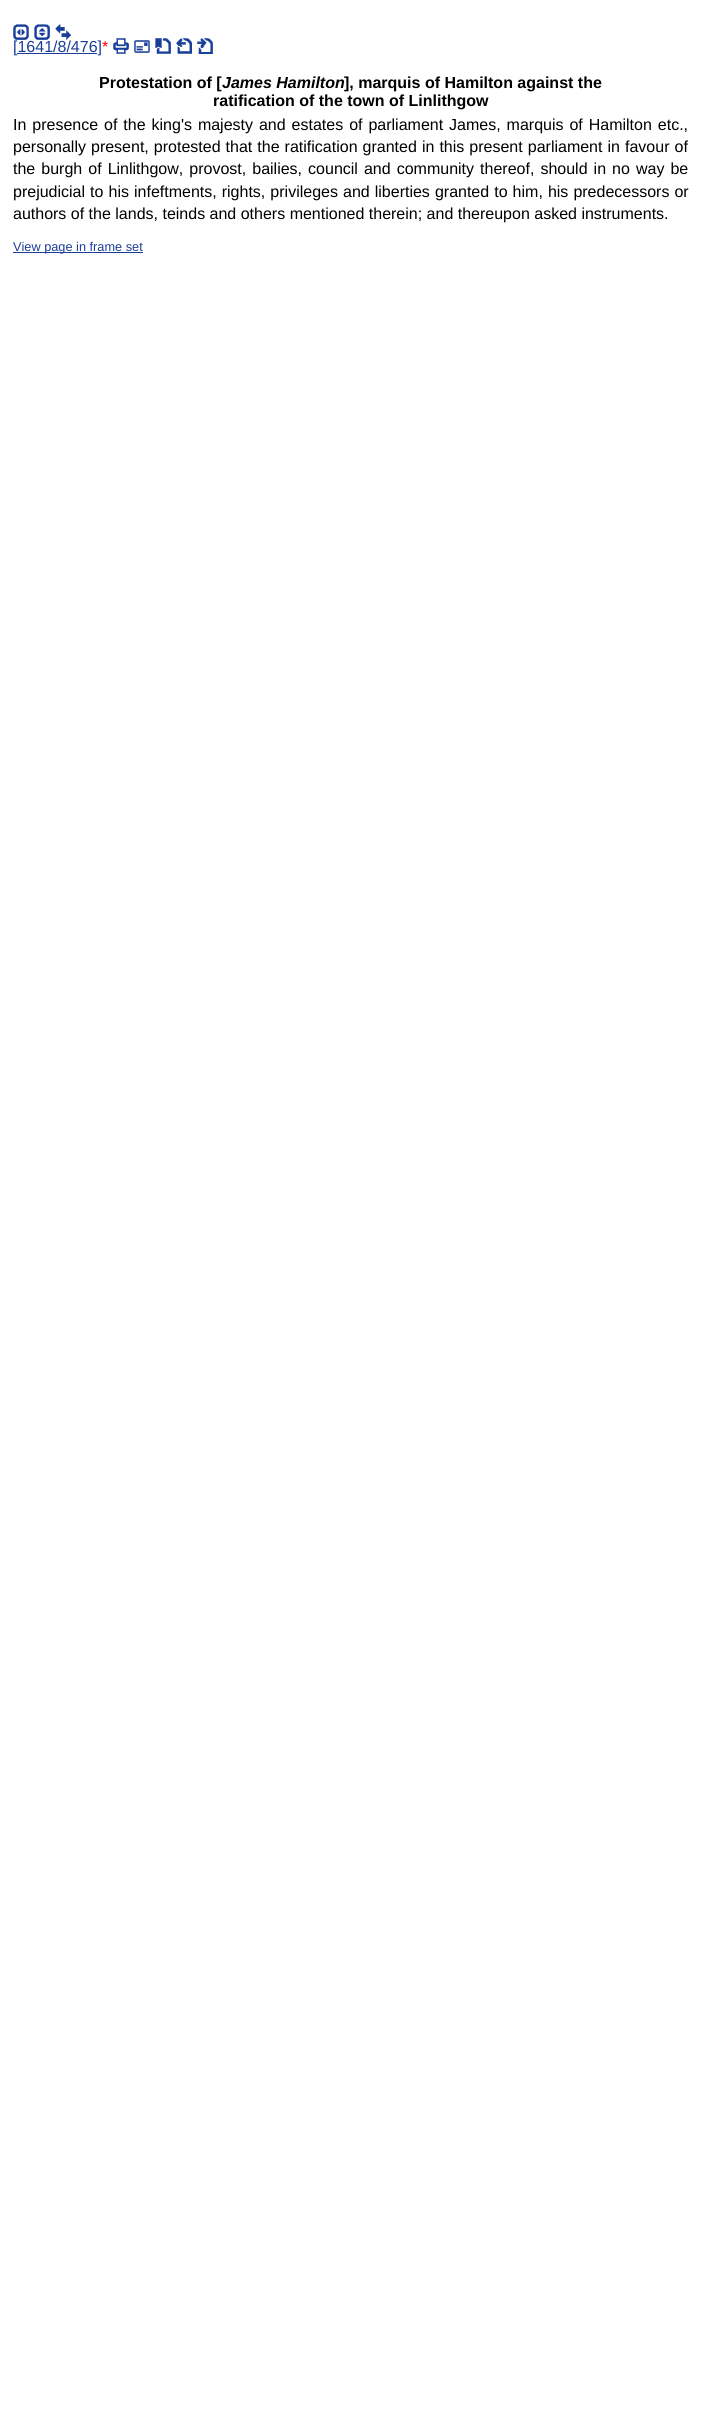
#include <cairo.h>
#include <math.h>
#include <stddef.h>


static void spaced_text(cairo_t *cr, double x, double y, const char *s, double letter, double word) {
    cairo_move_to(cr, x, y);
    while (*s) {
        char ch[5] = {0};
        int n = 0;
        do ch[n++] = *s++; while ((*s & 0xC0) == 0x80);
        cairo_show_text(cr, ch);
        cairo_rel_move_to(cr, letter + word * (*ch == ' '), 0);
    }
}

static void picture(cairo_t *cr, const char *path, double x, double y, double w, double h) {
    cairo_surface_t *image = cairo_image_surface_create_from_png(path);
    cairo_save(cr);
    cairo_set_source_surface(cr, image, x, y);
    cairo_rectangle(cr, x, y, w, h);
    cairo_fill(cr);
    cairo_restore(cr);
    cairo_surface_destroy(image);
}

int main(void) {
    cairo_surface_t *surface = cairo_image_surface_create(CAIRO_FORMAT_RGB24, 701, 2411);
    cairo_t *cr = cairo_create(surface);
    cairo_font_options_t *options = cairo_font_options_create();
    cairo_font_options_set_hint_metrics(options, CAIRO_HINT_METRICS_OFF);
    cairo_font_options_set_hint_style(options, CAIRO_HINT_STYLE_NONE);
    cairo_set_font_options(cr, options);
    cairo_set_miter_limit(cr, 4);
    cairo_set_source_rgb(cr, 1, 1, 1);
    cairo_paint(cr);
    picture(cr, "img1.png", 13, 24, 16, 16);
    picture(cr, "img2.png", 34, 24, 16, 16);
    picture(cr, "img3.png", 55, 24, 16, 16);
    cairo_select_font_face(cr, "Liberation Sans", CAIRO_FONT_SLANT_NORMAL, CAIRO_FONT_WEIGHT_NORMAL);
    cairo_set_font_size(cr, 16);
    cairo_set_source_rgb(cr, 0.106, 0.243, 0.6);
    cairo_move_to(cr, 13, 52);
    cairo_show_text(cr, "[1641/8/476]");
    cairo_set_source_rgb(cr, 1, 0, 0);
    cairo_move_to(cr, 102, 52);
    cairo_show_text(cr, "*");
    picture(cr, "img4.png", 113, 38, 16, 16);
    picture(cr, "img5.png", 134, 40, 16, 13);
    picture(cr, "img6.png", 155, 38, 16, 16);
    picture(cr, "img7.png", 176, 38, 16, 16);
    picture(cr, "img8.png", 197, 38, 16, 16);
    cairo_set_source_rgb(cr, 0.106, 0.243, 0.6);
    cairo_rectangle(cr, 17, 53, 80, 1);
    cairo_fill(cr);
    cairo_select_font_face(cr, "Liberation Sans", CAIRO_FONT_SLANT_NORMAL, CAIRO_FONT_WEIGHT_BOLD);
    cairo_set_source_rgb(cr, 0, 0, 0);
    cairo_move_to(cr, 99, 88);
    cairo_show_text(cr, "Protestation of [");
    cairo_select_font_face(cr, "Liberation Sans", CAIRO_FONT_SLANT_ITALIC, CAIRO_FONT_WEIGHT_BOLD);
    cairo_move_to(cr, 222, 88);
    cairo_show_text(cr, "James Hamilton");
    cairo_select_font_face(cr, "Liberation Sans", CAIRO_FONT_SLANT_NORMAL, CAIRO_FONT_WEIGHT_BOLD);
    cairo_move_to(cr, 344, 88);
    cairo_show_text(cr, "], marquis of Hamilton against the");
    cairo_move_to(cr, 213, 106);
    cairo_show_text(cr, "ratification of the town of Linlithgow");
    cairo_select_font_face(cr, "Liberation Sans", CAIRO_FONT_SLANT_NORMAL, CAIRO_FONT_WEIGHT_NORMAL);
    spaced_text(cr, 13, 130, "In presence of the king's majesty and estates of parliament James, marquis of Hamilton etc.,", 0, 1.5);
    spaced_text(cr, 13, 152, "personally present, protested that the ratification granted in this present parliament in favour of", 0, 0.6);
    spaced_text(cr, 13, 174, "the burgh of Linlithgow, provost, bailies, council and community thereof, should in no way be", 0, 1.6);
    spaced_text(cr, 13, 197, "prejudicial to his infeftments, rights, privileges and liberties granted to him, his predecessors or", 0, 0.6);
    cairo_move_to(cr, 13, 219);
    cairo_show_text(cr, "authors of the lands, teinds and others mentioned therein; and thereupon asked instruments.");
    cairo_set_source_rgb(cr, 0.106, 0.243, 0.6);
    cairo_rectangle(cr, 13, 252, 130, 1);
    cairo_fill(cr);
    cairo_set_font_size(cr, 12.75);
    cairo_move_to(cr, 13, 251);
    cairo_show_text(cr, "View page in frame set");
    cairo_surface_write_to_png(surface, "page.png");
    cairo_font_options_destroy(options);
    cairo_destroy(cr);
    cairo_surface_destroy(surface);
    return 0;
}
